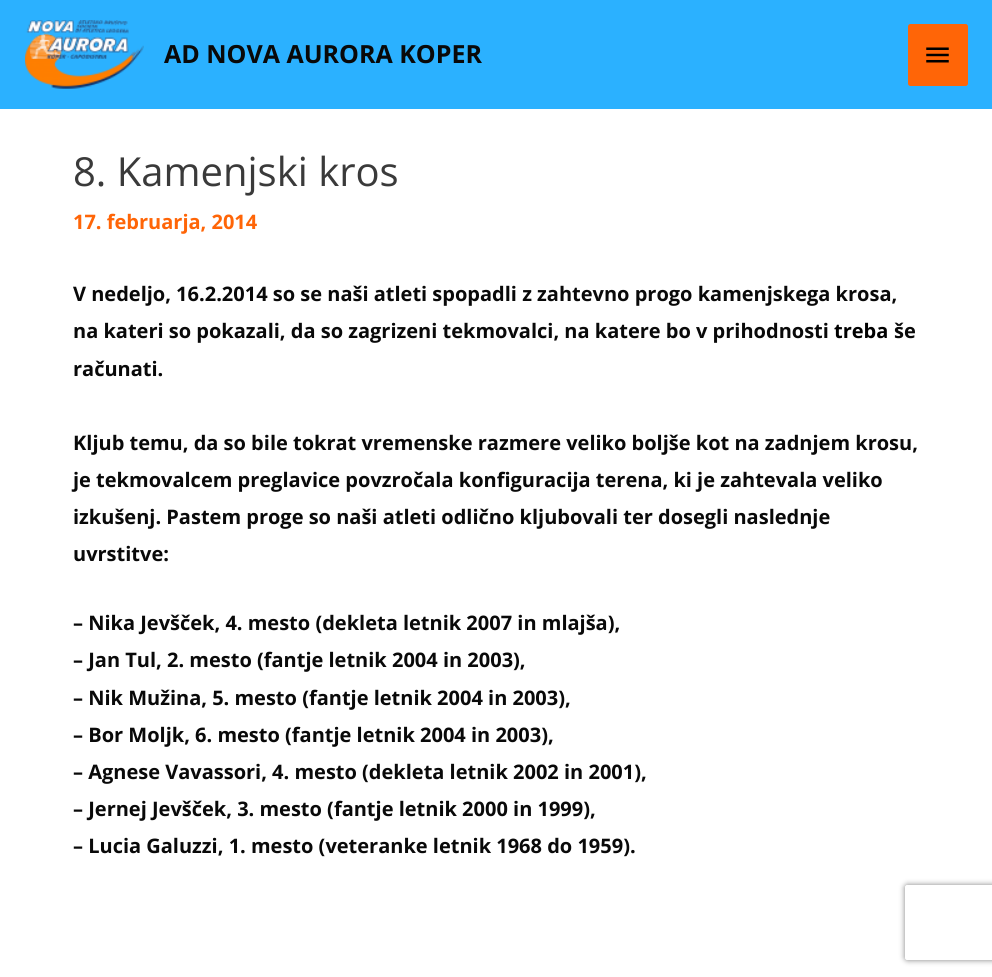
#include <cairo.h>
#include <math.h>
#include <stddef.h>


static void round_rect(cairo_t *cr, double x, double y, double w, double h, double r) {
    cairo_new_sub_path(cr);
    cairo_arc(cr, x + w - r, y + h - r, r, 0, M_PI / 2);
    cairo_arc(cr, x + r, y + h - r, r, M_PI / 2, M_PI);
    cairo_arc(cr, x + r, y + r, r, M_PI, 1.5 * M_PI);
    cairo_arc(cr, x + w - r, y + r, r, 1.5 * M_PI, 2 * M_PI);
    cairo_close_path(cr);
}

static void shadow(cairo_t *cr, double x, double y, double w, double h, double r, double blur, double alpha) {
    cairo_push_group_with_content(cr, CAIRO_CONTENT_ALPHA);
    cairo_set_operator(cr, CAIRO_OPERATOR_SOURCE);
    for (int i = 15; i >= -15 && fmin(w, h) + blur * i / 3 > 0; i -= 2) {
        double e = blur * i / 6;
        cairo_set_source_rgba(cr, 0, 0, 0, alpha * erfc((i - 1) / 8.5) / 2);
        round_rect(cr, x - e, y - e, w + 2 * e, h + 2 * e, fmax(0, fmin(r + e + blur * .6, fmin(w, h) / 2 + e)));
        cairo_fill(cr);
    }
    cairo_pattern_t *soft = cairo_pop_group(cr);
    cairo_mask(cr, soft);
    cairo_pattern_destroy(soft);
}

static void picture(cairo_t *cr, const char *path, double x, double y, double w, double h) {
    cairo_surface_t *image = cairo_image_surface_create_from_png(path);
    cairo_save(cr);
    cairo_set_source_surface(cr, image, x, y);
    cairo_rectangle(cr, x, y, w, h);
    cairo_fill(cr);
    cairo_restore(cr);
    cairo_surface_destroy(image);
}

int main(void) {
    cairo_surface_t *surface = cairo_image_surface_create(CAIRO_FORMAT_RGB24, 992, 977);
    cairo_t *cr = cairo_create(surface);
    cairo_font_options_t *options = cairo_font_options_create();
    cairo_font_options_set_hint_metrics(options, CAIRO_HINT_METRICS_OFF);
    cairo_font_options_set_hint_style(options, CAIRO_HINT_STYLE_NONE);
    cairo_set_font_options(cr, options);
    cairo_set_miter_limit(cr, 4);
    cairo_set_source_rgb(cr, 1, 1, 1);
    cairo_paint(cr);
    cairo_set_source_rgb(cr, 0.169, 0.694, 1);
    cairo_rectangle(cr, 0, 0, 992, 109);
    cairo_fill(cr);
    picture(cr, "img1.png", 25, 20, 119, 69);
    cairo_select_font_face(cr, "Open Sans", CAIRO_FONT_SLANT_NORMAL, CAIRO_FONT_WEIGHT_BOLD);
    cairo_set_font_size(cr, 25);
    cairo_set_source_rgb(cr, 0.039, 0.039, 0.039);
    cairo_move_to(cr, 164, 63);
    cairo_show_text(cr, "AD NOVA AURORA KOPER");
    cairo_set_source_rgb(cr, 1, 0.396, 0.031);
    round_rect(cr, 908, 24, 60, 62, 2.5);
    cairo_fill(cr);
    picture(cr, "img2.png", 926, 47, 23, 16);
    cairo_select_font_face(cr, "Open Sans", CAIRO_FONT_SLANT_NORMAL, CAIRO_FONT_WEIGHT_NORMAL);
    cairo_set_font_size(cr, 40);
    cairo_set_source_rgb(cr, 0.227, 0.227, 0.227);
    cairo_move_to(cr, 73, 186);
    cairo_show_text(cr, "8. Kamenjski kros");
    cairo_select_font_face(cr, "Open Sans", CAIRO_FONT_SLANT_NORMAL, CAIRO_FONT_WEIGHT_BOLD);
    cairo_set_font_size(cr, 20);
    cairo_set_source_rgb(cr, 1, 0.396, 0.031);
    cairo_move_to(cr, 73, 229);
    cairo_show_text(cr, "17. februarja, 2014");
    cairo_set_source_rgb(cr, 0.039, 0.039, 0.039);
    cairo_move_to(cr, 73, 301);
    cairo_show_text(cr, "V nedeljo, 16.2.2014 so se naši atleti spopadli z zahtevno progo kamenjskega krosa,");
    cairo_move_to(cr, 73, 338);
    cairo_show_text(cr, "na kateri so pokazali, da so zagrizeni tekmovalci, na katere bo v prihodnosti");
    cairo_set_source_rgb(cr, 0, 0, 0);
    cairo_move_to(cr, 834, 338);
    cairo_show_text(cr, "treba");
    cairo_set_source_rgb(cr, 0.039, 0.039, 0.039);
    cairo_move_to(cr, 894, 338);
    cairo_show_text(cr, "še");
    cairo_move_to(cr, 73, 376);
    cairo_show_text(cr, "računati.");
    cairo_move_to(cr, 73, 450);
    cairo_show_text(cr, "Kljub temu, da so bile tokrat vremenske razmere veliko boljše kot na zadnjem krosu,");
    cairo_move_to(cr, 73, 487);
    cairo_show_text(cr, "je tekmovalcem preglavice povzročala konfiguracija terena, ki je zahtevala veliko");
    cairo_move_to(cr, 73, 524);
    cairo_show_text(cr, "izkušenj. Pastem proge so naši atleti odlično kljubovali ter dosegli naslednje");
    cairo_move_to(cr, 73, 561);
    cairo_show_text(cr, "uvrstitve:");
    cairo_move_to(cr, 73, 630);
    cairo_show_text(cr, "– Nika Jevšček, 4. mesto (dekleta letnik 2007 in mlajša),");
    cairo_move_to(cr, 73, 667);
    cairo_show_text(cr, "– Jan Tul, 2. mesto (fantje letnik 2004 in 2003),");
    cairo_move_to(cr, 73, 705);
    cairo_show_text(cr, "– Nik Mužina, 5. mesto (fantje letnik 2004 in 2003),");
    cairo_move_to(cr, 73, 742);
    cairo_show_text(cr, "– Bor Moljk, 6. mesto (fantje letnik 2004 in 2003),");
    cairo_move_to(cr, 73, 779);
    cairo_show_text(cr, "– Agnese Vavassori, 4. mesto (dekleta letnik 2002 in 2001),");
    cairo_move_to(cr, 73, 816);
    cairo_show_text(cr, "– Jernej Jevšček, 3. mesto (fantje letnik 2000 in 1999),");
    cairo_move_to(cr, 73, 853);
    cairo_show_text(cr, "– Lucia Galuzzi, 1. mesto (veteranke letnik 1968 do 1959).");
    cairo_save(cr);
    cairo_set_fill_rule(cr, CAIRO_FILL_RULE_EVEN_ODD);
    cairo_new_path(cr);
    cairo_move_to(cr, 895, 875);
    cairo_line_to(cr, 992, 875);
    cairo_line_to(cr, 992, 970);
    cairo_line_to(cr, 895, 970);
    cairo_close_path(cr);
    cairo_move_to(cr, 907.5, 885);
    cairo_line_to(cr, 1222.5, 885);
    cairo_curve_to(cr, 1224, 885, 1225, 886, 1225, 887.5);
    cairo_line_to(cr, 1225, 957.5);
    cairo_curve_to(cr, 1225, 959, 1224, 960, 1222.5, 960);
    cairo_line_to(cr, 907.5, 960);
    cairo_curve_to(cr, 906, 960, 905, 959, 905, 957.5);
    cairo_line_to(cr, 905, 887.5);
    cairo_curve_to(cr, 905, 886, 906, 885, 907.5, 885);
    cairo_close_path(cr);
    cairo_clip(cr);
    cairo_set_source_rgb(cr, 0.502, 0.502, 0.502);
    shadow(cr, 905, 885, 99, 75, 2.5, 3, 1);
    cairo_restore(cr);
    cairo_surface_write_to_png(surface, "page.png");
    cairo_font_options_destroy(options);
    cairo_destroy(cr);
    cairo_surface_destroy(surface);
    return 0;
}
